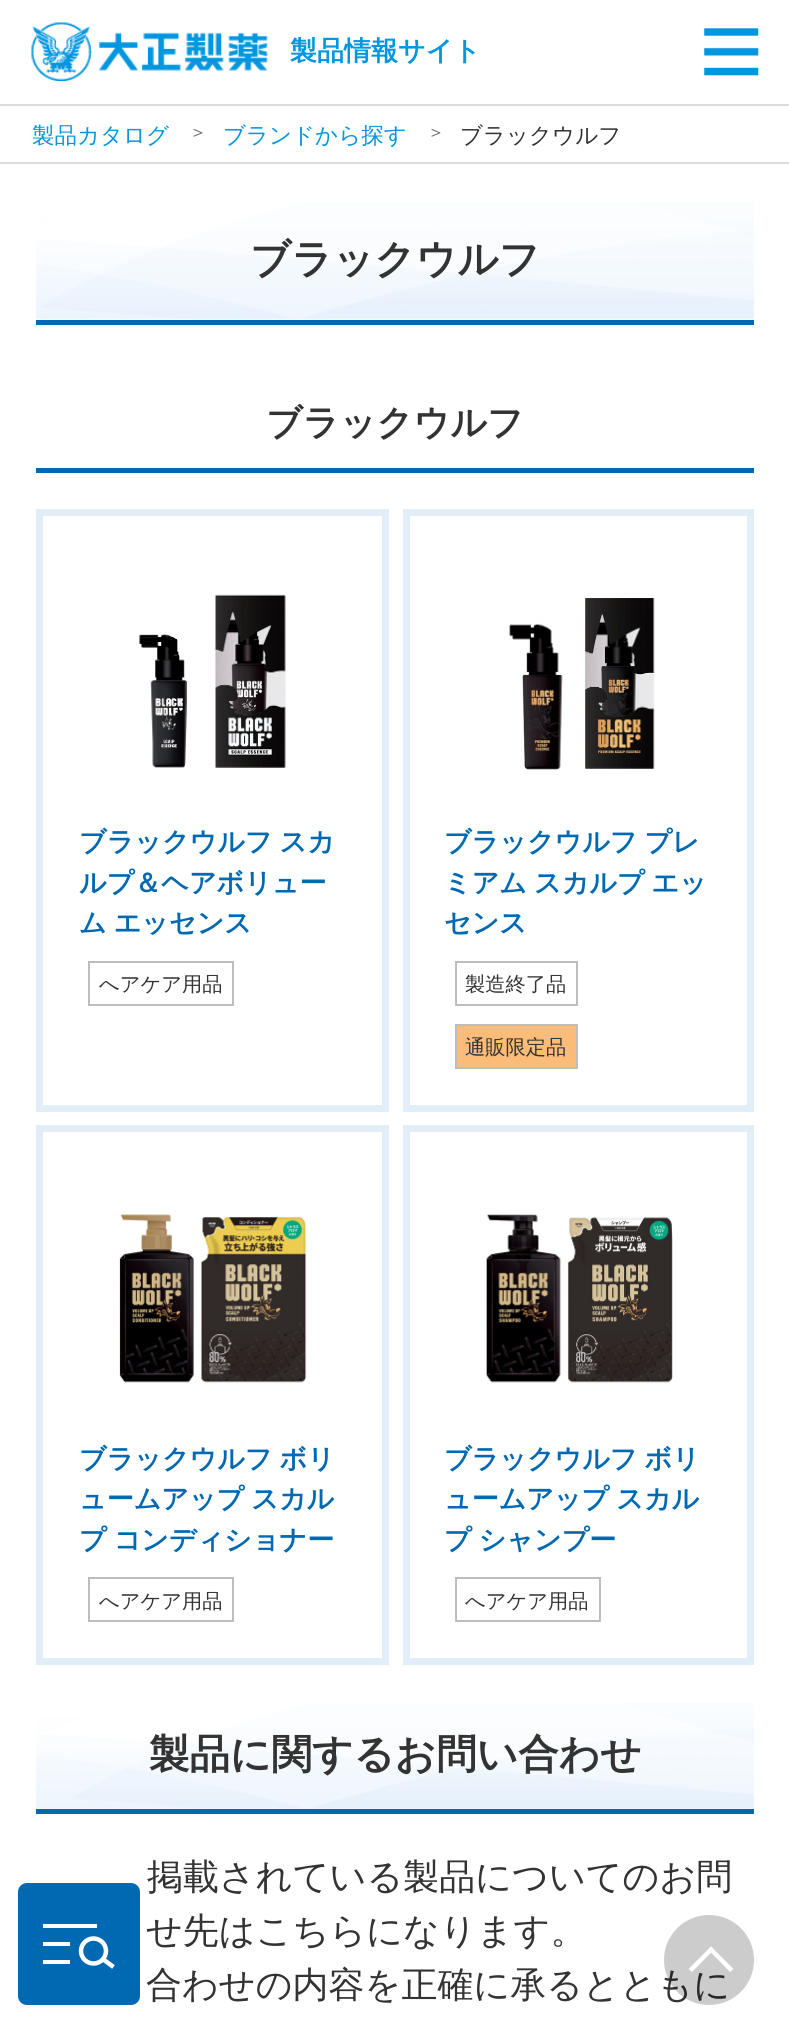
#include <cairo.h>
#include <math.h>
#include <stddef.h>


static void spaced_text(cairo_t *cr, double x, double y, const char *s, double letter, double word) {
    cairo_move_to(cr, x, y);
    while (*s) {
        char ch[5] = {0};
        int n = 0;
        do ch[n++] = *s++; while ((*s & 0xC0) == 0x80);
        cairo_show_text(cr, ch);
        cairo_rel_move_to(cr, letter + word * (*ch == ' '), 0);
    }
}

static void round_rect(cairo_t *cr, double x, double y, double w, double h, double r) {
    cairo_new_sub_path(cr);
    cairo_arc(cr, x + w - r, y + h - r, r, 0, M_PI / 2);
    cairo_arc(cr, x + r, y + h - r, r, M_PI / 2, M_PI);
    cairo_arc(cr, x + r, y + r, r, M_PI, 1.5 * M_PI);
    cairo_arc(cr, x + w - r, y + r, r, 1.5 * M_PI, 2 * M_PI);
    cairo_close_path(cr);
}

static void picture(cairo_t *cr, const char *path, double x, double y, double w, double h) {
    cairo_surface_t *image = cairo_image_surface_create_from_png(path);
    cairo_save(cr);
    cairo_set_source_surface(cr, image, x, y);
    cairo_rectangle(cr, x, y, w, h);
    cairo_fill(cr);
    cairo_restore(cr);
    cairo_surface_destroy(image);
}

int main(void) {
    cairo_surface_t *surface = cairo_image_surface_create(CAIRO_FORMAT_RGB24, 789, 2040);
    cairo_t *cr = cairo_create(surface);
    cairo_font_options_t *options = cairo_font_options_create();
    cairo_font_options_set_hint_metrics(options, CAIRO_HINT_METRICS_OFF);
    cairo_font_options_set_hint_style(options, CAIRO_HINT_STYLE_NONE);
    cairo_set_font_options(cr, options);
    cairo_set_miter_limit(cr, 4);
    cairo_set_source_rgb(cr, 1, 1, 1);
    cairo_paint(cr);
    cairo_set_source_rgb(cr, 0.863, 0.863, 0.863);
    cairo_rectangle(cr, 0, 162, 789, 2);
    cairo_fill(cr);
    picture(cr, "img1.png", 31, 22, 237, 59);
    cairo_select_font_face(cr, "WenQuanYi Zen Hei", CAIRO_FONT_SLANT_NORMAL, CAIRO_FONT_WEIGHT_BOLD);
    cairo_set_font_size(cr, 27);
    cairo_set_source_rgb(cr, 0, 0.588, 0.878);
    cairo_move_to(cr, 290, 60);
    cairo_show_text(cr, "製品情報サイト");
    picture(cr, "img2.png", 704, 28, 55, 48);
    cairo_set_source_rgb(cr, 0.863, 0.863, 0.863);
    cairo_rectangle(cr, 0, 104, 789, 2);
    cairo_fill(cr);
    cairo_select_font_face(cr, "WenQuanYi Zen Hei Medium", CAIRO_FONT_SLANT_NORMAL, CAIRO_FONT_WEIGHT_NORMAL);
    cairo_set_font_size(cr, 22.5);
    cairo_set_source_rgb(cr, 0, 0.588, 0.878);
    cairo_move_to(cr, 32, 143);
    cairo_show_text(cr, "製品カタログ");
    cairo_set_font_size(cr, 18);
    cairo_set_source_rgb(cr, 0.4, 0.4, 0.4);
    cairo_move_to(cr, 189, 138);
    cairo_show_text(cr, "＞");
    cairo_set_font_size(cr, 22.5);
    cairo_set_source_rgb(cr, 0, 0.588, 0.878);
    cairo_move_to(cr, 223, 143);
    cairo_show_text(cr, "ブランドから探す");
    cairo_set_font_size(cr, 18);
    cairo_set_source_rgb(cr, 0.4, 0.4, 0.4);
    cairo_move_to(cr, 427, 138);
    cairo_show_text(cr, "＞");
    cairo_set_font_size(cr, 22.5);
    cairo_set_source_rgb(cr, 0.2, 0.2, 0.2);
    cairo_move_to(cr, 460, 143);
    cairo_show_text(cr, "ブラックウルフ");
    picture(cr, "img3.png", 36, 202, 718, 118);
    cairo_set_source_rgb(cr, 0.004, 0.412, 0.698);
    cairo_rectangle(cr, 36, 320, 718, 5);
    cairo_fill(cr);
    cairo_select_font_face(cr, "WenQuanYi Zen Hei", CAIRO_FONT_SLANT_NORMAL, CAIRO_FONT_WEIGHT_BOLD);
    cairo_set_font_size(cr, 40.5);
    cairo_set_source_rgb(cr, 0.2, 0.2, 0.2);
    cairo_move_to(cr, 250, 273);
    cairo_show_text(cr, "ブラックウルフ");
    cairo_set_source_rgb(cr, 0.004, 0.412, 0.698);
    cairo_rectangle(cr, 36, 468, 718, 5);
    cairo_fill(cr);
    cairo_set_font_size(cr, 36);
    cairo_set_source_rgb(cr, 0.2, 0.2, 0.2);
    cairo_move_to(cr, 266, 435);
    cairo_show_text(cr, "ブラックウルフ");
    cairo_rectangle(cr, 39.5, 512.5, 346, 596);
    cairo_set_source_rgb(cr, 0.882, 0.929, 0.965);
    cairo_set_line_width(cr, 7);
    cairo_stroke(cr);
    picture(cr, "img4.png", 139, 594, 147, 174);
    cairo_set_font_size(cr, 27);
    cairo_set_source_rgb(cr, 0.004, 0.412, 0.698);
    spaced_text(cr, 79, 851, "ブラックウルフ スカ", 0, -1);
    cairo_move_to(cr, 79, 892);
    cairo_show_text(cr, "ルプ＆ヘアボリュー");
    spaced_text(cr, 79, 932, "ム エッセンス", 0, -1);
    cairo_rectangle(cr, 89, 962, 144, 43);
    cairo_set_source_rgb(cr, 0.741, 0.741, 0.741);
    cairo_set_line_width(cr, 2);
    cairo_stroke(cr);
    cairo_select_font_face(cr, "WenQuanYi Zen Hei Medium", CAIRO_FONT_SLANT_NORMAL, CAIRO_FONT_WEIGHT_NORMAL);
    cairo_set_font_size(cr, 20.25);
    cairo_set_source_rgb(cr, 0.2, 0.2, 0.2);
    cairo_move_to(cr, 99, 991);
    cairo_show_text(cr, "へアケア用品");
    cairo_rectangle(cr, 406.5, 512.5, 344, 596);
    cairo_set_source_rgb(cr, 0.882, 0.929, 0.965);
    cairo_set_line_width(cr, 7);
    cairo_stroke(cr);
    picture(cr, "img5.png", 509, 598, 146, 172);
    cairo_select_font_face(cr, "WenQuanYi Zen Hei", CAIRO_FONT_SLANT_NORMAL, CAIRO_FONT_WEIGHT_BOLD);
    cairo_set_font_size(cr, 27);
    cairo_set_source_rgb(cr, 0.004, 0.412, 0.698);
    spaced_text(cr, 444, 851, "ブラックウルフ プレ", 0, -1);
    spaced_text(cr, 444, 892, "ミアム スカルプ エッ", 0, -1);
    cairo_move_to(cr, 444, 932);
    cairo_show_text(cr, "センス");
    cairo_rectangle(cr, 456, 962, 121, 43);
    cairo_set_source_rgb(cr, 0.741, 0.741, 0.741);
    cairo_set_line_width(cr, 2);
    cairo_stroke(cr);
    cairo_select_font_face(cr, "WenQuanYi Zen Hei Medium", CAIRO_FONT_SLANT_NORMAL, CAIRO_FONT_WEIGHT_NORMAL);
    cairo_set_font_size(cr, 20.25);
    cairo_set_source_rgb(cr, 0.2, 0.2, 0.2);
    cairo_move_to(cr, 465, 991);
    cairo_show_text(cr, "製造終了品");
    cairo_set_source_rgb(cr, 0.984, 0.737, 0.475);
    cairo_rectangle(cr, 456, 1025, 121, 43);
    cairo_fill_preserve(cr);
    cairo_set_source_rgb(cr, 0.741, 0.741, 0.741);
    cairo_stroke(cr);
    cairo_set_source_rgb(cr, 0.2, 0.2, 0.2);
    cairo_move_to(cr, 465, 1054);
    cairo_show_text(cr, "通販限定品");
    cairo_rectangle(cr, 39.5, 1128.5, 346, 533);
    cairo_set_source_rgb(cr, 0.882, 0.929, 0.965);
    cairo_set_line_width(cr, 7);
    cairo_stroke(cr);
    picture(cr, "img6.png", 119, 1214, 188, 169);
    cairo_select_font_face(cr, "WenQuanYi Zen Hei", CAIRO_FONT_SLANT_NORMAL, CAIRO_FONT_WEIGHT_BOLD);
    cairo_set_font_size(cr, 27);
    cairo_set_source_rgb(cr, 0.004, 0.412, 0.698);
    spaced_text(cr, 79, 1468, "ブラックウルフ ボリ", 0, -1);
    spaced_text(cr, 79, 1508, "ュームアップ スカル", 0, -1);
    spaced_text(cr, 79, 1549, "プ コンディショナー", 0, -1);
    cairo_rectangle(cr, 89, 1578, 144, 43);
    cairo_set_source_rgb(cr, 0.741, 0.741, 0.741);
    cairo_set_line_width(cr, 2);
    cairo_stroke(cr);
    cairo_select_font_face(cr, "WenQuanYi Zen Hei Medium", CAIRO_FONT_SLANT_NORMAL, CAIRO_FONT_WEIGHT_NORMAL);
    cairo_set_font_size(cr, 20.25);
    cairo_set_source_rgb(cr, 0.2, 0.2, 0.2);
    cairo_move_to(cr, 99, 1608);
    cairo_show_text(cr, "へアケア用品");
    cairo_rectangle(cr, 406.5, 1128.5, 344, 533);
    cairo_set_source_rgb(cr, 0.882, 0.929, 0.965);
    cairo_set_line_width(cr, 7);
    cairo_stroke(cr);
    picture(cr, "img7.png", 486, 1214, 187, 169);
    cairo_select_font_face(cr, "WenQuanYi Zen Hei", CAIRO_FONT_SLANT_NORMAL, CAIRO_FONT_WEIGHT_BOLD);
    cairo_set_font_size(cr, 27);
    cairo_set_source_rgb(cr, 0.004, 0.412, 0.698);
    spaced_text(cr, 444, 1468, "ブラックウルフ ボリ", 0, -1);
    spaced_text(cr, 444, 1508, "ュームアップ スカル", 0, -1);
    spaced_text(cr, 444, 1549, "プ シャンプー", 0, -1);
    cairo_rectangle(cr, 456, 1578, 144, 43);
    cairo_set_source_rgb(cr, 0.741, 0.741, 0.741);
    cairo_set_line_width(cr, 2);
    cairo_stroke(cr);
    cairo_select_font_face(cr, "WenQuanYi Zen Hei Medium", CAIRO_FONT_SLANT_NORMAL, CAIRO_FONT_WEIGHT_NORMAL);
    cairo_set_font_size(cr, 20.25);
    cairo_set_source_rgb(cr, 0.2, 0.2, 0.2);
    cairo_move_to(cr, 465, 1608);
    cairo_show_text(cr, "へアケア用品");
    picture(cr, "img8.png", 36, 1703, 718, 106);
    cairo_set_source_rgb(cr, 0.004, 0.412, 0.698);
    cairo_rectangle(cr, 36, 1809, 718, 5);
    cairo_fill(cr);
    cairo_select_font_face(cr, "WenQuanYi Zen Hei", CAIRO_FONT_SLANT_NORMAL, CAIRO_FONT_WEIGHT_BOLD);
    cairo_set_font_size(cr, 40.5);
    cairo_set_source_rgb(cr, 0.2, 0.2, 0.2);
    cairo_move_to(cr, 149, 1768);
    cairo_show_text(cr, "製品に関するお問い合わせ");
    cairo_select_font_face(cr, "WenQuanYi Zen Hei Medium", CAIRO_FONT_SLANT_NORMAL, CAIRO_FONT_WEIGHT_NORMAL);
    cairo_set_font_size(cr, 36);
    cairo_move_to(cr, 147, 1889);
    cairo_show_text(cr, "掲載されている製品についてのお問");
    cairo_move_to(cr, 146, 1943);
    cairo_show_text(cr, "せ先はこちらになります。");
    cairo_move_to(cr, 146, 1997);
    cairo_show_text(cr, "合わせの内容を正確に承るとともに");
    cairo_set_source_rgba(cr, 0, 0, 0, 0.2);
    cairo_new_path(cr);
    cairo_arc(cr, 709, 1960, 45, 0, 2 * M_PI);
    cairo_fill(cr);
    cairo_set_source_rgb(cr, 1, 1, 1);
    cairo_new_path(cr);
    cairo_move_to(cr, 688.5, 1969);
    cairo_line_to(cr, 711, 1946.5);
    cairo_line_to(cr, 714, 1949.5);
    cairo_line_to(cr, 692, 1972);
    cairo_close_path(cr);
    cairo_fill(cr);
    cairo_new_path(cr);
    cairo_move_to(cr, 708, 1949.5);
    cairo_line_to(cr, 711, 1946.5);
    cairo_line_to(cr, 733.5, 1969);
    cairo_line_to(cr, 730, 1972);
    cairo_close_path(cr);
    cairo_fill(cr);
    cairo_set_source_rgb(cr, 0.004, 0.412, 0.698);
    round_rect(cr, 18, 1883, 122, 122, 9);
    cairo_fill(cr);
    cairo_set_source_rgb(cr, 1, 1, 1);
    cairo_rectangle(cr, 43, 1924, 54, 4);
    cairo_fill(cr);
    cairo_rectangle(cr, 43, 1942, 27, 4);
    cairo_fill(cr);
    cairo_rectangle(cr, 43, 1960, 27, 4);
    cairo_fill(cr);
    cairo_arc(cr, 93.5, 1951, 12.5, 0, 2 * M_PI);
    cairo_set_line_width(cr, 4.5);
    cairo_stroke(cr);
    cairo_new_path(cr);
    cairo_move_to(cr, 102, 1958.5);
    cairo_line_to(cr, 113.5, 1967);
    cairo_stroke(cr);
    cairo_surface_write_to_png(surface, "page.png");
    cairo_font_options_destroy(options);
    cairo_destroy(cr);
    cairo_surface_destroy(surface);
    return 0;
}
